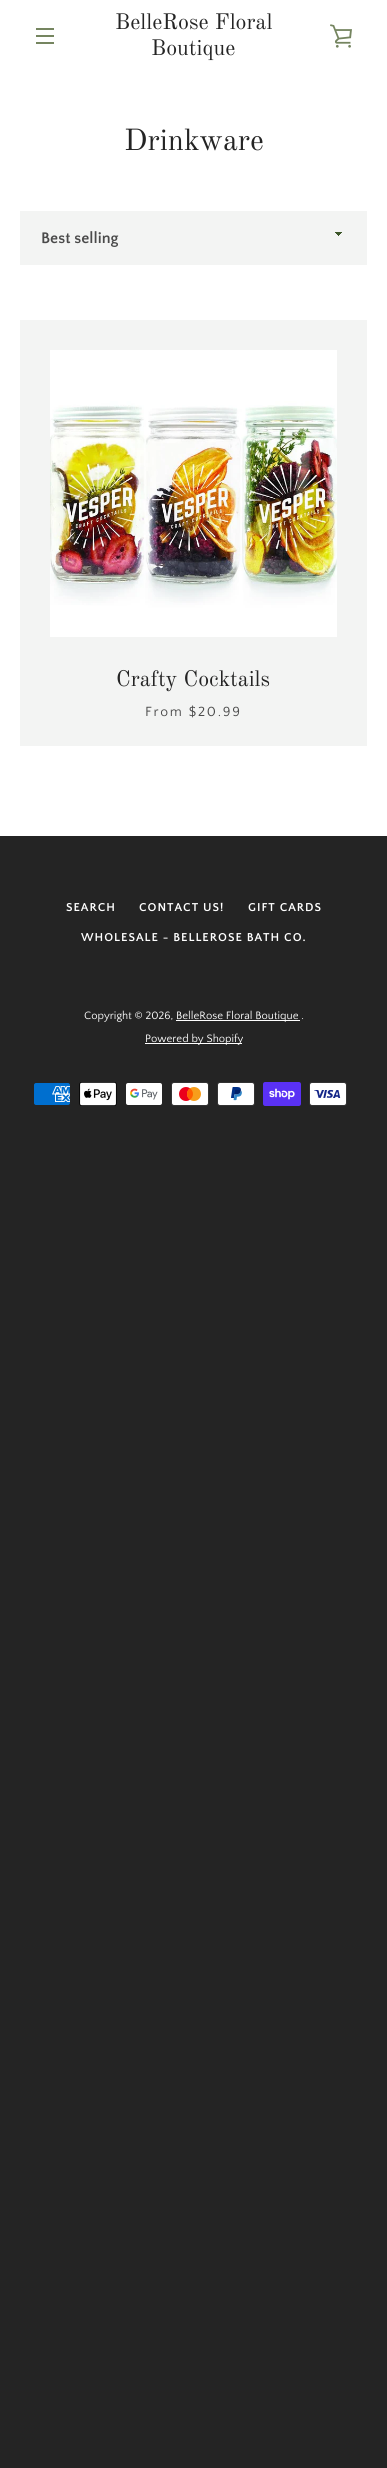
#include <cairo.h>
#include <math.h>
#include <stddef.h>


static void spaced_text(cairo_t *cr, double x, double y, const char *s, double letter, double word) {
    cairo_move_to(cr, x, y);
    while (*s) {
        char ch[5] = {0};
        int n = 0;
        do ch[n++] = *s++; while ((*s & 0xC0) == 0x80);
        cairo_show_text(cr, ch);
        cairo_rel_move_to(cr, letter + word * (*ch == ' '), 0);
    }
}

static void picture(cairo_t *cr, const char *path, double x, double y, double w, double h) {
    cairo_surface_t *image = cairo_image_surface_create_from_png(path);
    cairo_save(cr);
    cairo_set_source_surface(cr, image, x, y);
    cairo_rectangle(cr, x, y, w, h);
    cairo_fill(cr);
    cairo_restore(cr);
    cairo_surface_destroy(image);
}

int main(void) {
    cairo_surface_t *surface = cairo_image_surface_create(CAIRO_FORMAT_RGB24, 387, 2468);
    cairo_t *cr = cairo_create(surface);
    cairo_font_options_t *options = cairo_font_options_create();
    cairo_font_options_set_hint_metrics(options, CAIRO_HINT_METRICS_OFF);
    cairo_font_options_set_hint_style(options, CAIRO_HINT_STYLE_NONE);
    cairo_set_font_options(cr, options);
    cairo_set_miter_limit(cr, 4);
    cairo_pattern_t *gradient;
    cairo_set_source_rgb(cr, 0.141, 0.141, 0.141);
    cairo_paint(cr);
    cairo_set_source_rgb(cr, 1, 1, 1);
    cairo_rectangle(cr, 0, 0, 387, 836);
    cairo_fill(cr);
    cairo_set_source_rgb(cr, 0.459, 0.522, 0.376);
    cairo_rectangle(cr, 36, 28, 18, 2);
    cairo_fill(cr);
    cairo_rectangle(cr, 36, 35, 18, 2);
    cairo_fill(cr);
    cairo_rectangle(cr, 36, 42, 18, 2);
    cairo_fill(cr);
    cairo_select_font_face(cr, "Old Standard TT", CAIRO_FONT_SLANT_NORMAL, CAIRO_FONT_WEIGHT_NORMAL);
    cairo_set_font_size(cr, 22);
    cairo_set_source_rgb(cr, 0.141, 0.141, 0.141);
    cairo_move_to(cr, 115, 29);
    cairo_show_text(cr, "BelleRose Floral");
    cairo_move_to(cr, 151, 55);
    cairo_show_text(cr, "Boutique");
    picture(cr, "img1.png", 330, 24, 22, 24);
    cairo_set_font_size(cr, 30);
    cairo_move_to(cr, 124, 150);
    cairo_show_text(cr, "Drinkware");
    cairo_set_source_rgb(cr, 0.953, 0.957, 0.953);
    cairo_rectangle(cr, 20, 211, 347, 54);
    cairo_fill(cr);
    gradient = cairo_pattern_create_linear(339, 232, 343, 236);
    cairo_pattern_add_color_stop_rgba(gradient, 0.5, 0.235, 0.337, 0.161, 1);
    cairo_pattern_add_color_stop_rgba(gradient, 0.5, 0.953, 0.957, 0.953, 1);
    cairo_set_source(cr, gradient);
    cairo_pattern_destroy(gradient);
    cairo_rectangle(cr, 339, 232, 4, 3);
    cairo_fill(cr);
    gradient = cairo_pattern_create_linear(335, 236, 339, 232);
    cairo_pattern_add_color_stop_rgba(gradient, 0.5, 0.953, 0.957, 0.953, 1);
    cairo_pattern_add_color_stop_rgba(gradient, 0.5, 0.235, 0.337, 0.161, 1);
    cairo_set_source(cr, gradient);
    cairo_pattern_destroy(gradient);
    cairo_rectangle(cr, 335, 232, 4, 4);
    cairo_fill(cr);
    cairo_select_font_face(cr, "Quattrocento Sans", CAIRO_FONT_SLANT_NORMAL, CAIRO_FONT_WEIGHT_BOLD);
    cairo_set_font_size(cr, 16);
    cairo_set_source_rgb(cr, 0.29, 0.29, 0.29);
    cairo_move_to(cr, 41, 243);
    cairo_show_text(cr, "Best selling");
    cairo_set_source_rgb(cr, 0.953, 0.957, 0.953);
    cairo_rectangle(cr, 20, 320, 347, 426);
    cairo_fill(cr);
    picture(cr, "img2.png", 50, 350, 287, 287);
    cairo_select_font_face(cr, "Old Standard TT", CAIRO_FONT_SLANT_NORMAL, CAIRO_FONT_WEIGHT_NORMAL);
    cairo_set_font_size(cr, 22);
    cairo_set_source_rgb(cr, 0.141, 0.141, 0.141);
    cairo_move_to(cr, 116, 686);
    cairo_show_text(cr, "Crafty Cocktails");
    cairo_select_font_face(cr, "Quattrocento Sans", CAIRO_FONT_SLANT_NORMAL, CAIRO_FONT_WEIGHT_NORMAL);
    cairo_set_font_size(cr, 14);
    cairo_set_source_rgb(cr, 0.29, 0.29, 0.29);
    spaced_text(cr, 145, 716, "From $20.99", 1.75, 0);
    cairo_select_font_face(cr, "Quattrocento Sans", CAIRO_FONT_SLANT_NORMAL, CAIRO_FONT_WEIGHT_BOLD);
    cairo_set_font_size(cr, 12);
    cairo_set_source_rgb(cr, 1, 1, 1);
    spaced_text(cr, 66, 911, "SEARCH", 1, 0);
    spaced_text(cr, 139, 911, "CONTACT US!", 1, 0);
    spaced_text(cr, 248, 911, "GIFT CARDS", 1, 0);
    spaced_text(cr, 81, 941, "WHOLESALE - BELLEROSE BATH CO.", 1, 0);
    cairo_select_font_face(cr, "Quattrocento Sans", CAIRO_FONT_SLANT_NORMAL, CAIRO_FONT_WEIGHT_NORMAL);
    cairo_set_font_size(cr, 11.25);
    cairo_move_to(cr, 84, 1019);
    cairo_show_text(cr, "Copyright © 2026,");
    cairo_rectangle(cr, 176, 1020, 124, 1);
    cairo_fill(cr);
    cairo_move_to(cr, 176, 1019);
    cairo_show_text(cr, "BelleRose Floral Boutique .");
    cairo_rectangle(cr, 145, 1043, 97, 1);
    cairo_fill(cr);
    cairo_move_to(cr, 145, 1042);
    cairo_show_text(cr, "Powered by Shopify");
    picture(cr, "img3.png", 34, 1083, 36, 22);
    picture(cr, "img4.png", 79, 1082, 38, 24);
    picture(cr, "img5.png", 126, 1083, 36, 22);
    picture(cr, "img6.png", 171, 1082, 38, 24);
    picture(cr, "img7.png", 217, 1082, 38, 24);
    picture(cr, "img8.png", 263, 1082, 38, 24);
    picture(cr, "img9.png", 309, 1082, 38, 24);
    cairo_surface_write_to_png(surface, "page.png");
    cairo_font_options_destroy(options);
    cairo_destroy(cr);
    cairo_surface_destroy(surface);
    return 0;
}
